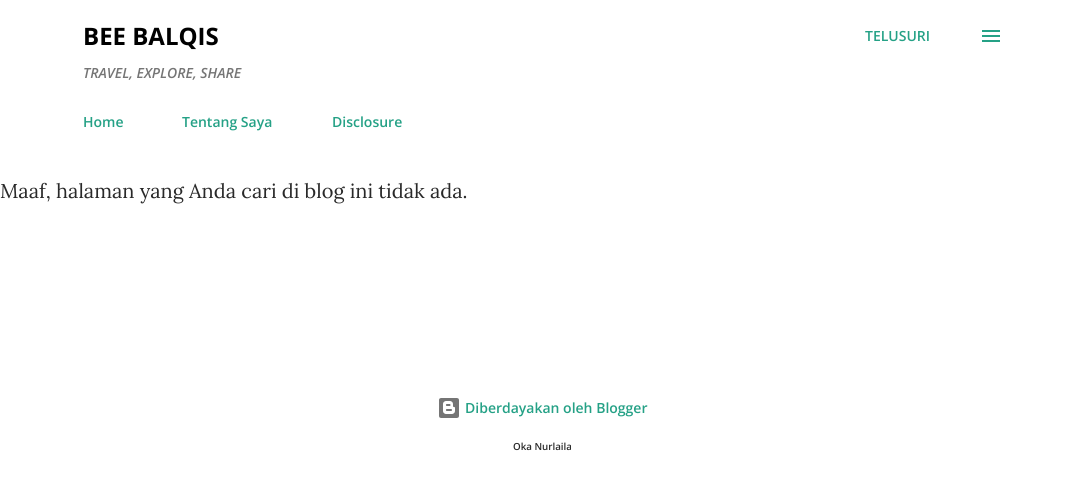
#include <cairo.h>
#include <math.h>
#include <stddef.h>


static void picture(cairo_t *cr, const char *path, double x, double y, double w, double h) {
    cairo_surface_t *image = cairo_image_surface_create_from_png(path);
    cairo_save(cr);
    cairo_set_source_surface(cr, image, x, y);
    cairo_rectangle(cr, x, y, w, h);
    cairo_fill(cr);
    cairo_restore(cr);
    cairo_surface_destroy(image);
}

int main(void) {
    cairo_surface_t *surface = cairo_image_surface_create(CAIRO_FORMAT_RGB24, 1085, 491);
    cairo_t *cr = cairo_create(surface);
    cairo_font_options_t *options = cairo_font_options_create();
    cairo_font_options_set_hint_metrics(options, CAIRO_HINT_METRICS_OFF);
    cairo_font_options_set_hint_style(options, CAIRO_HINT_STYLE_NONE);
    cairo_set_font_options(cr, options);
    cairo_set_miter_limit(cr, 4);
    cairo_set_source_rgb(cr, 1, 1, 1);
    cairo_paint(cr);
    cairo_select_font_face(cr, "Open Sans", CAIRO_FONT_SLANT_NORMAL, CAIRO_FONT_WEIGHT_BOLD);
    cairo_set_font_size(cr, 24);
    cairo_set_source_rgb(cr, 0, 0, 0);
    cairo_move_to(cr, 83, 45);
    cairo_show_text(cr, "BEE BALQIS");
    cairo_select_font_face(cr, "Open Sans SemiBold", CAIRO_FONT_SLANT_ITALIC, CAIRO_FONT_WEIGHT_NORMAL);
    cairo_set_font_size(cr, 14);
    cairo_set_source_rgb(cr, 0.459, 0.459, 0.459);
    cairo_move_to(cr, 83, 78);
    cairo_show_text(cr, "TRAVEL, EXPLORE, SHARE");
    cairo_select_font_face(cr, "Open Sans SemiBold", CAIRO_FONT_SLANT_NORMAL, CAIRO_FONT_WEIGHT_NORMAL);
    cairo_set_source_rgb(cr, 0.145, 0.631, 0.525);
    cairo_move_to(cr, 865, 41);
    cairo_show_text(cr, "TELUSURI");
    picture(cr, "img1.png", 982, 30, 18, 12);
    cairo_move_to(cr, 83, 127);
    cairo_show_text(cr, "Home");
    cairo_move_to(cr, 182, 127);
    cairo_show_text(cr, "Tentang Saya");
    cairo_move_to(cr, 332, 127);
    cairo_show_text(cr, "Disclosure");
    cairo_select_font_face(cr, "Lora", CAIRO_FONT_SLANT_NORMAL, CAIRO_FONT_WEIGHT_NORMAL);
    cairo_set_font_size(cr, 20);
    cairo_set_source_rgb(cr, 0.161, 0.161, 0.161);
    cairo_move_to(cr, 0, 198);
    cairo_show_text(cr, "Maaf, halaman yang Anda cari di blog ini tidak ada.");
    picture(cr, "img2.png", 439, 398, 20, 20);
    cairo_select_font_face(cr, "Open Sans SemiBold", CAIRO_FONT_SLANT_NORMAL, CAIRO_FONT_WEIGHT_NORMAL);
    cairo_set_font_size(cr, 14);
    cairo_set_source_rgb(cr, 0.145, 0.631, 0.525);
    cairo_move_to(cr, 465, 413);
    cairo_show_text(cr, "Diberdayakan oleh Blogger");
    cairo_set_font_size(cr, 9.75);
    cairo_set_source_rgb(cr, 0.161, 0.161, 0.161);
    cairo_move_to(cr, 513, 450);
    cairo_show_text(cr, "Oka Nurlaila");
    cairo_surface_write_to_png(surface, "page.png");
    cairo_font_options_destroy(options);
    cairo_destroy(cr);
    cairo_surface_destroy(surface);
    return 0;
}
